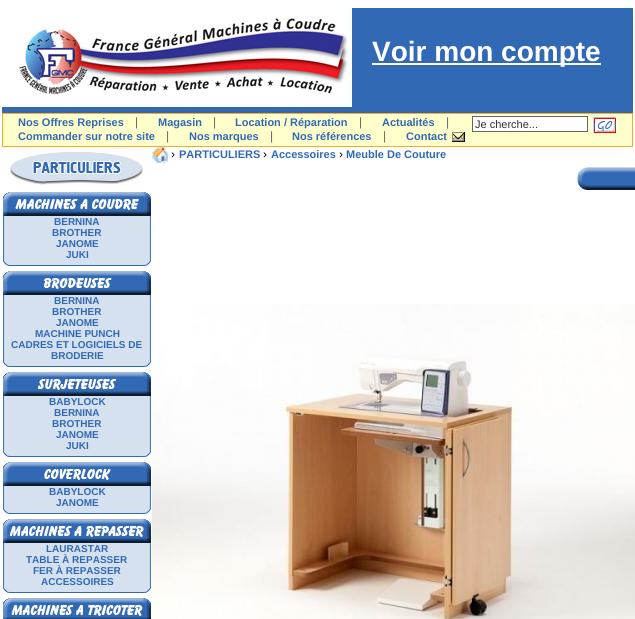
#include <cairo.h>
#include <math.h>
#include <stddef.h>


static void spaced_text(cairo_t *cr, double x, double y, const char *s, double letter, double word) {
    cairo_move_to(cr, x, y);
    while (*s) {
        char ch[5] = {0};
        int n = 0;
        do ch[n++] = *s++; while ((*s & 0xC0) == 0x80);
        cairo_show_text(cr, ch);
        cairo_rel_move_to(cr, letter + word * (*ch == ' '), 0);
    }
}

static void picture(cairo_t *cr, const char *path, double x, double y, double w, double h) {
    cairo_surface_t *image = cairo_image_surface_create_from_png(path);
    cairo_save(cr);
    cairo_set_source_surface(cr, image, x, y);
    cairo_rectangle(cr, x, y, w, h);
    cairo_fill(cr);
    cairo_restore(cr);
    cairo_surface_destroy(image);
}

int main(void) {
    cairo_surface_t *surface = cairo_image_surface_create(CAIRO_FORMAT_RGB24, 635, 619);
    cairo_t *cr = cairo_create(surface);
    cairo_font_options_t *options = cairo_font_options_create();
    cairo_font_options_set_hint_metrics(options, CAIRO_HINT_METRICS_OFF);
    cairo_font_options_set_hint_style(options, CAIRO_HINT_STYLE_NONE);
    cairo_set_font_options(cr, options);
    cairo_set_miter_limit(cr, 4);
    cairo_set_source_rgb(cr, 1, 1, 1);
    cairo_paint(cr);
    cairo_set_source_rgb(cr, 0.192, 0.412, 0.71);
    cairo_rectangle(cr, 352, 8, 281, 99);
    cairo_fill(cr);
    picture(cr, "img1.png", 2, 8, 350, 99);
    cairo_set_source_rgb(cr, 1, 1, 1);
    cairo_rectangle(cr, 372, 63, 229, 2);
    cairo_fill(cr);
    cairo_select_font_face(cr, "Liberation Sans", CAIRO_FONT_SLANT_NORMAL, CAIRO_FONT_WEIGHT_BOLD);
    cairo_set_font_size(cr, 28);
    cairo_move_to(cr, 372, 61);
    cairo_show_text(cr, "Voir mon compte");
    cairo_set_source_rgb(cr, 0.192, 0.412, 0.71);
    cairo_rectangle(cr, 2, 107, 631, 6);
    cairo_fill(cr);
    cairo_set_source_rgb(cr, 1, 1, 0.8);
    cairo_rectangle(cr, 2.5, 113.5, 630, 33);
    cairo_fill_preserve(cr);
    cairo_set_source_rgb(cr, 0.992, 0.663, 0.137);
    cairo_set_line_width(cr, 1);
    cairo_stroke(cr);
    cairo_set_font_size(cr, 11);
    cairo_set_source_rgb(cr, 0.192, 0.412, 0.71);
    cairo_move_to(cr, 18, 126);
    cairo_show_text(cr, "Nos Offres Reprises");
    cairo_select_font_face(cr, "Liberation Sans", CAIRO_FONT_SLANT_NORMAL, CAIRO_FONT_WEIGHT_NORMAL);
    cairo_set_font_size(cr, 12);
    cairo_set_source_rgb(cr, 0.392, 0.392, 0.392);
    spaced_text(cr, 135, 126, "|", 8, 0);
    cairo_select_font_face(cr, "Liberation Sans", CAIRO_FONT_SLANT_NORMAL, CAIRO_FONT_WEIGHT_BOLD);
    cairo_set_font_size(cr, 11);
    cairo_set_source_rgb(cr, 0.192, 0.412, 0.71);
    cairo_move_to(cr, 158, 126);
    cairo_show_text(cr, "Magasin");
    cairo_select_font_face(cr, "Liberation Sans", CAIRO_FONT_SLANT_NORMAL, CAIRO_FONT_WEIGHT_NORMAL);
    cairo_set_font_size(cr, 12);
    cairo_set_source_rgb(cr, 0.392, 0.392, 0.392);
    spaced_text(cr, 213, 126, "|", 8, 0);
    cairo_select_font_face(cr, "Liberation Sans", CAIRO_FONT_SLANT_NORMAL, CAIRO_FONT_WEIGHT_BOLD);
    cairo_set_font_size(cr, 11);
    cairo_set_source_rgb(cr, 0.192, 0.412, 0.71);
    cairo_move_to(cr, 235, 126);
    cairo_show_text(cr, "Location / Réparation");
    cairo_select_font_face(cr, "Liberation Sans", CAIRO_FONT_SLANT_NORMAL, CAIRO_FONT_WEIGHT_NORMAL);
    cairo_set_font_size(cr, 12);
    cairo_set_source_rgb(cr, 0.392, 0.392, 0.392);
    spaced_text(cr, 359, 126, "|", 8, 0);
    cairo_select_font_face(cr, "Liberation Sans", CAIRO_FONT_SLANT_NORMAL, CAIRO_FONT_WEIGHT_BOLD);
    cairo_set_font_size(cr, 11);
    cairo_set_source_rgb(cr, 0.192, 0.412, 0.71);
    cairo_move_to(cr, 382, 126);
    cairo_show_text(cr, "Actualités");
    cairo_select_font_face(cr, "Liberation Sans", CAIRO_FONT_SLANT_NORMAL, CAIRO_FONT_WEIGHT_NORMAL);
    cairo_set_font_size(cr, 12);
    cairo_set_source_rgb(cr, 0.392, 0.392, 0.392);
    spaced_text(cr, 446, 126, "|", 8, 0);
    cairo_set_source_rgb(cr, 1, 1, 1);
    cairo_rectangle(cr, 472.5, 116.5, 115, 15);
    cairo_fill_preserve(cr);
    cairo_set_source_rgb(cr, 0.392, 0.392, 0.392);
    cairo_stroke(cr);
    cairo_set_font_size(cr, 11);
    cairo_set_source_rgb(cr, 0.196, 0.196, 0.196);
    cairo_move_to(cr, 475, 128);
    cairo_show_text(cr, "Je cherche...");
    cairo_set_source_rgb(cr, 1, 1, 1);
    cairo_rectangle(cr, 591, 117, 2, 16);
    cairo_fill(cr);
    picture(cr, "img2.png", 593, 117, 24, 16);
    cairo_select_font_face(cr, "Liberation Sans", CAIRO_FONT_SLANT_NORMAL, CAIRO_FONT_WEIGHT_BOLD);
    cairo_set_source_rgb(cr, 0.192, 0.412, 0.71);
    cairo_move_to(cr, 18, 140);
    cairo_show_text(cr, "Commander sur notre site");
    cairo_select_font_face(cr, "Liberation Sans", CAIRO_FONT_SLANT_NORMAL, CAIRO_FONT_WEIGHT_NORMAL);
    cairo_set_font_size(cr, 12);
    cairo_set_source_rgb(cr, 0.392, 0.392, 0.392);
    spaced_text(cr, 166, 140, "|", 8, 0);
    cairo_select_font_face(cr, "Liberation Sans", CAIRO_FONT_SLANT_NORMAL, CAIRO_FONT_WEIGHT_BOLD);
    cairo_set_font_size(cr, 11);
    cairo_set_source_rgb(cr, 0.192, 0.412, 0.71);
    cairo_move_to(cr, 189, 140);
    cairo_show_text(cr, "Nos marques");
    cairo_select_font_face(cr, "Liberation Sans", CAIRO_FONT_SLANT_NORMAL, CAIRO_FONT_WEIGHT_NORMAL);
    cairo_set_font_size(cr, 12);
    cairo_set_source_rgb(cr, 0.392, 0.392, 0.392);
    spaced_text(cr, 270, 140, "|", 8, 0);
    cairo_select_font_face(cr, "Liberation Sans", CAIRO_FONT_SLANT_NORMAL, CAIRO_FONT_WEIGHT_BOLD);
    cairo_set_font_size(cr, 11);
    cairo_set_source_rgb(cr, 0.192, 0.412, 0.71);
    cairo_move_to(cr, 292, 140);
    cairo_show_text(cr, "Nos références");
    cairo_select_font_face(cr, "Liberation Sans", CAIRO_FONT_SLANT_NORMAL, CAIRO_FONT_WEIGHT_NORMAL);
    cairo_set_font_size(cr, 12);
    cairo_set_source_rgb(cr, 0.392, 0.392, 0.392);
    spaced_text(cr, 383, 140, "|", 8, 0);
    cairo_select_font_face(cr, "Liberation Sans", CAIRO_FONT_SLANT_NORMAL, CAIRO_FONT_WEIGHT_BOLD);
    cairo_set_font_size(cr, 11);
    cairo_set_source_rgb(cr, 0.192, 0.412, 0.71);
    cairo_move_to(cr, 406, 140);
    cairo_show_text(cr, "Contact");
    picture(cr, "img3.png", 452, 132, 13, 10);
    picture(cr, "img4.png", 152, 147, 16, 16);
    cairo_select_font_face(cr, "Liberation Sans", CAIRO_FONT_SLANT_NORMAL, CAIRO_FONT_WEIGHT_NORMAL);
    cairo_set_font_size(cr, 12);
    cairo_set_source_rgb(cr, 0, 0, 0);
    cairo_move_to(cr, 171, 158);
    cairo_show_text(cr, "›");
    cairo_select_font_face(cr, "Liberation Sans", CAIRO_FONT_SLANT_NORMAL, CAIRO_FONT_WEIGHT_BOLD);
    cairo_set_font_size(cr, 11);
    cairo_set_source_rgb(cr, 0.192, 0.412, 0.71);
    cairo_move_to(cr, 179, 158);
    cairo_show_text(cr, "PARTICULIERS");
    cairo_select_font_face(cr, "Liberation Sans", CAIRO_FONT_SLANT_NORMAL, CAIRO_FONT_WEIGHT_NORMAL);
    cairo_set_font_size(cr, 12);
    cairo_set_source_rgb(cr, 0, 0, 0);
    cairo_move_to(cr, 263, 158);
    cairo_show_text(cr, "›");
    cairo_select_font_face(cr, "Liberation Sans", CAIRO_FONT_SLANT_NORMAL, CAIRO_FONT_WEIGHT_BOLD);
    cairo_set_font_size(cr, 11);
    cairo_set_source_rgb(cr, 0.192, 0.412, 0.71);
    cairo_move_to(cr, 271, 158);
    cairo_show_text(cr, "Accessoires");
    cairo_select_font_face(cr, "Liberation Sans", CAIRO_FONT_SLANT_NORMAL, CAIRO_FONT_WEIGHT_NORMAL);
    cairo_set_font_size(cr, 12);
    cairo_set_source_rgb(cr, 0, 0, 0);
    cairo_move_to(cr, 339, 158);
    cairo_show_text(cr, "›");
    cairo_select_font_face(cr, "Liberation Sans", CAIRO_FONT_SLANT_NORMAL, CAIRO_FONT_WEIGHT_BOLD);
    cairo_set_font_size(cr, 11);
    cairo_set_source_rgb(cr, 0.192, 0.412, 0.71);
    cairo_move_to(cr, 346, 158);
    cairo_show_text(cr, "Meuble De Couture");
    picture(cr, "img5.png", 577, 167, 58, 23);
    picture(cr, "img6.png", 152, 304, 483, 315);
    picture(cr, "img7.png", 10, 152, 133, 33);
    picture(cr, "img8.png", 3, 216, 148, 371);
    picture(cr, "img9.png", 3, 192, 148, 24);
    cairo_set_font_size(cr, 10);
    cairo_move_to(cr, 54, 225);
    cairo_show_text(cr, "BERNINA");
    cairo_move_to(cr, 52, 236);
    cairo_show_text(cr, "BROTHER");
    cairo_move_to(cr, 56, 247);
    cairo_show_text(cr, "JANOME");
    cairo_move_to(cr, 66, 258);
    cairo_show_text(cr, "JUKI");
    picture(cr, "img10.png", 3, 260, 148, 35);
    cairo_move_to(cr, 54, 304);
    cairo_show_text(cr, "BERNINA");
    cairo_move_to(cr, 52, 315);
    cairo_show_text(cr, "BROTHER");
    cairo_move_to(cr, 56, 326);
    cairo_show_text(cr, "JANOME");
    cairo_move_to(cr, 35, 337);
    cairo_show_text(cr, "MACHINE PUNCH");
    cairo_move_to(cr, 11, 348);
    cairo_show_text(cr, "CADRES ET LOGICIELS DE");
    cairo_move_to(cr, 51, 359);
    cairo_show_text(cr, "BRODERIE");
    picture(cr, "img11.png", 3, 361, 148, 35);
    cairo_move_to(cr, 49, 405);
    cairo_show_text(cr, "BABYLOCK");
    cairo_move_to(cr, 54, 416);
    cairo_show_text(cr, "BERNINA");
    cairo_move_to(cr, 52, 427);
    cairo_show_text(cr, "BROTHER");
    cairo_move_to(cr, 56, 438);
    cairo_show_text(cr, "JANOME");
    cairo_move_to(cr, 66, 449);
    cairo_show_text(cr, "JUKI");
    picture(cr, "img12.png", 3, 451, 148, 35);
    cairo_move_to(cr, 49, 495);
    cairo_show_text(cr, "BABYLOCK");
    cairo_move_to(cr, 56, 506);
    cairo_show_text(cr, "JANOME");
    picture(cr, "img13.png", 3, 508, 148, 35);
    cairo_move_to(cr, 46, 552);
    cairo_show_text(cr, "LAURASTAR");
    cairo_move_to(cr, 26, 563);
    cairo_show_text(cr, "TABLE À REPASSER");
    cairo_move_to(cr, 33, 574);
    cairo_show_text(cr, "FER À REPASSER");
    cairo_move_to(cr, 41, 585);
    cairo_show_text(cr, "ACCESSOIRES");
    picture(cr, "img14.png", 3, 587, 148, 32);
    cairo_surface_write_to_png(surface, "page.png");
    cairo_font_options_destroy(options);
    cairo_destroy(cr);
    cairo_surface_destroy(surface);
    return 0;
}
